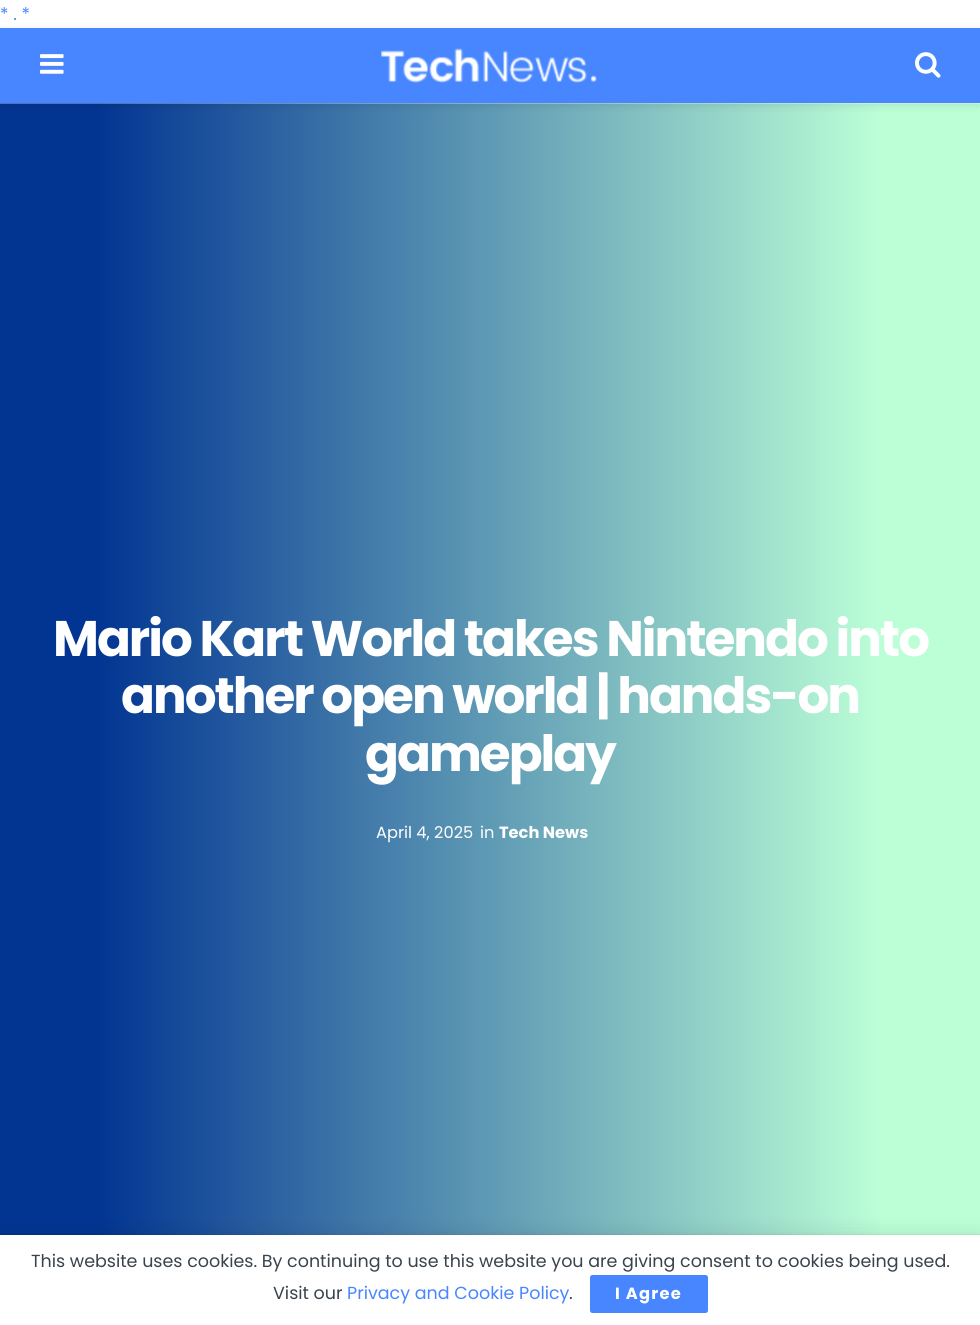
#include <cairo.h>
#include <math.h>
#include <stddef.h>


static void spaced_text(cairo_t *cr, double x, double y, const char *s, double letter, double word) {
    cairo_move_to(cr, x, y);
    while (*s) {
        char ch[5] = {0};
        int n = 0;
        do ch[n++] = *s++; while ((*s & 0xC0) == 0x80);
        cairo_show_text(cr, ch);
        cairo_rel_move_to(cr, letter + word * (*ch == ' '), 0);
    }
}

static void round_rect(cairo_t *cr, double x, double y, double w, double h, double r) {
    cairo_new_sub_path(cr);
    cairo_arc(cr, x + w - r, y + h - r, r, 0, M_PI / 2);
    cairo_arc(cr, x + r, y + h - r, r, M_PI / 2, M_PI);
    cairo_arc(cr, x + r, y + r, r, M_PI, 1.5 * M_PI);
    cairo_arc(cr, x + w - r, y + r, r, 1.5 * M_PI, 2 * M_PI);
    cairo_close_path(cr);
}

static void shadow(cairo_t *cr, double x, double y, double w, double h, double r, double blur, double alpha) {
    cairo_push_group_with_content(cr, CAIRO_CONTENT_ALPHA);
    cairo_set_operator(cr, CAIRO_OPERATOR_SOURCE);
    for (int i = 15; i >= -15 && fmin(w, h) + blur * i / 3 > 0; i -= 2) {
        double e = blur * i / 6;
        cairo_set_source_rgba(cr, 0, 0, 0, alpha * erfc((i - 1) / 8.5) / 2);
        round_rect(cr, x - e, y - e, w + 2 * e, h + 2 * e, fmax(0, fmin(r + e + blur * .6, fmin(w, h) / 2 + e)));
        cairo_fill(cr);
    }
    cairo_pattern_t *soft = cairo_pop_group(cr);
    cairo_mask(cr, soft);
    cairo_pattern_destroy(soft);
}

static void picture(cairo_t *cr, const char *path, double x, double y, double w, double h) {
    cairo_surface_t *image = cairo_image_surface_create_from_png(path);
    cairo_save(cr);
    cairo_set_source_surface(cr, image, x, y);
    cairo_rectangle(cr, x, y, w, h);
    cairo_fill(cr);
    cairo_restore(cr);
    cairo_surface_destroy(image);
}

int main(void) {
    cairo_surface_t *surface = cairo_image_surface_create(CAIRO_FORMAT_RGB24, 980, 1325);
    cairo_t *cr = cairo_create(surface);
    cairo_font_options_t *options = cairo_font_options_create();
    cairo_font_options_set_hint_metrics(options, CAIRO_HINT_METRICS_OFF);
    cairo_font_options_set_hint_style(options, CAIRO_HINT_STYLE_NONE);
    cairo_set_font_options(cr, options);
    cairo_set_miter_limit(cr, 4);
    cairo_pattern_t *gradient;
    cairo_set_source_rgb(cr, 1, 1, 1);
    cairo_paint(cr);
    cairo_select_font_face(cr, "Poppins", CAIRO_FONT_SLANT_NORMAL, CAIRO_FONT_WEIGHT_NORMAL);
    cairo_set_font_size(cr, 17.5);
    cairo_set_source_rgb(cr, 0.282, 0.525, 1);
    cairo_move_to(cr, 0, 20);
    cairo_show_text(cr, "* . *");
    gradient = cairo_pattern_create_linear(0, 690, 980, 690);
    cairo_pattern_add_color_stop_rgba(gradient, 0.1, 0.008, 0.208, 0.573, 1);
    cairo_pattern_add_color_stop_rgba(gradient, 0.9, 0.737, 1, 0.843, 1);
    cairo_set_source(cr, gradient);
    cairo_pattern_destroy(gradient);
    cairo_rectangle(cr, 0, 103, 980, 1132);
    cairo_fill(cr);
    cairo_set_source_rgb(cr, 0, 0, 0);
    shadow(cr, 0, 30, 980, 76, 0, 4, 0.1);
    cairo_set_source_rgba(cr, 1, 1, 1, 0.2);
    cairo_rectangle(cr, 0, 103, 980, 1);
    cairo_fill(cr);
    cairo_set_source_rgba(cr, 1, 1, 1, 0.15);
    cairo_rectangle(cr, 0, 103, 980, 1);
    cairo_fill(cr);
    cairo_set_source_rgb(cr, 0.282, 0.525, 1);
    cairo_rectangle(cr, 0, 28, 980, 75);
    cairo_fill(cr);
    picture(cr, "img1.png", 40, 54, 24, 20);
    picture(cr, "img2.png", 381, 48, 216, 35);
    picture(cr, "img3.png", 915, 52, 26, 26);
    cairo_select_font_face(cr, "Poppins", CAIRO_FONT_SLANT_NORMAL, CAIRO_FONT_WEIGHT_BOLD);
    cairo_set_font_size(cr, 50);
    cairo_set_source_rgb(cr, 1, 1, 1);
    spaced_text(cr, 53, 656, "Mario Kart World takes Nintendo into", -2, 0);
    spaced_text(cr, 121, 713, "another open world | hands-on", -2, 0);
    spaced_text(cr, 365, 771, "gameplay", -2, 0);
    cairo_select_font_face(cr, "Poppins", CAIRO_FONT_SLANT_NORMAL, CAIRO_FONT_WEIGHT_NORMAL);
    cairo_set_font_size(cr, 16.25);
    cairo_move_to(cr, 376, 838);
    cairo_show_text(cr, "April 4, 2025");
    cairo_move_to(cr, 480, 838);
    cairo_show_text(cr, "in");
    cairo_select_font_face(cr, "Poppins", CAIRO_FONT_SLANT_NORMAL, CAIRO_FONT_WEIGHT_BOLD);
    cairo_move_to(cr, 499, 838);
    cairo_show_text(cr, "Tech News");
    cairo_set_source_rgb(cr, 0, 0, 0);
    shadow(cr, 0, 1238, 980, 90, 0, 12.5, 0.15);
    shadow(cr, 0, 1235, 980, 90, 0, 0.5, 0.2);
    cairo_set_source_rgb(cr, 1, 1, 1);
    cairo_rectangle(cr, 0, 1235, 980, 90);
    cairo_fill(cr);
    cairo_select_font_face(cr, "Poppins", CAIRO_FONT_SLANT_NORMAL, CAIRO_FONT_WEIGHT_NORMAL);
    cairo_set_font_size(cr, 17.5);
    cairo_set_source_rgb(cr, 0.224, 0.263, 0.302);
    cairo_move_to(cr, 31, 1267);
    cairo_show_text(cr, "This website uses cookies. By continuing to use this website you are giving consent to cookies being used.");
    cairo_move_to(cr, 273, 1299);
    cairo_show_text(cr, "Visit our");
    cairo_set_source_rgb(cr, 0.282, 0.525, 1);
    cairo_move_to(cr, 347, 1299);
    cairo_show_text(cr, "Privacy and Cookie Policy");
    cairo_set_source_rgb(cr, 0.224, 0.263, 0.302);
    cairo_move_to(cr, 569, 1299);
    cairo_show_text(cr, ".");
    cairo_set_source_rgb(cr, 0.282, 0.525, 1);
    round_rect(cr, 590, 1275, 118, 38, 2.5);
    cairo_fill(cr);
    cairo_select_font_face(cr, "Poppins", CAIRO_FONT_SLANT_NORMAL, CAIRO_FONT_WEIGHT_BOLD);
    cairo_set_font_size(cr, 16.25);
    cairo_set_source_rgb(cr, 1, 1, 1);
    spaced_text(cr, 615, 1299, "I Agree", 1.25, 0);
    cairo_surface_write_to_png(surface, "page.png");
    cairo_font_options_destroy(options);
    cairo_destroy(cr);
    cairo_surface_destroy(surface);
    return 0;
}
